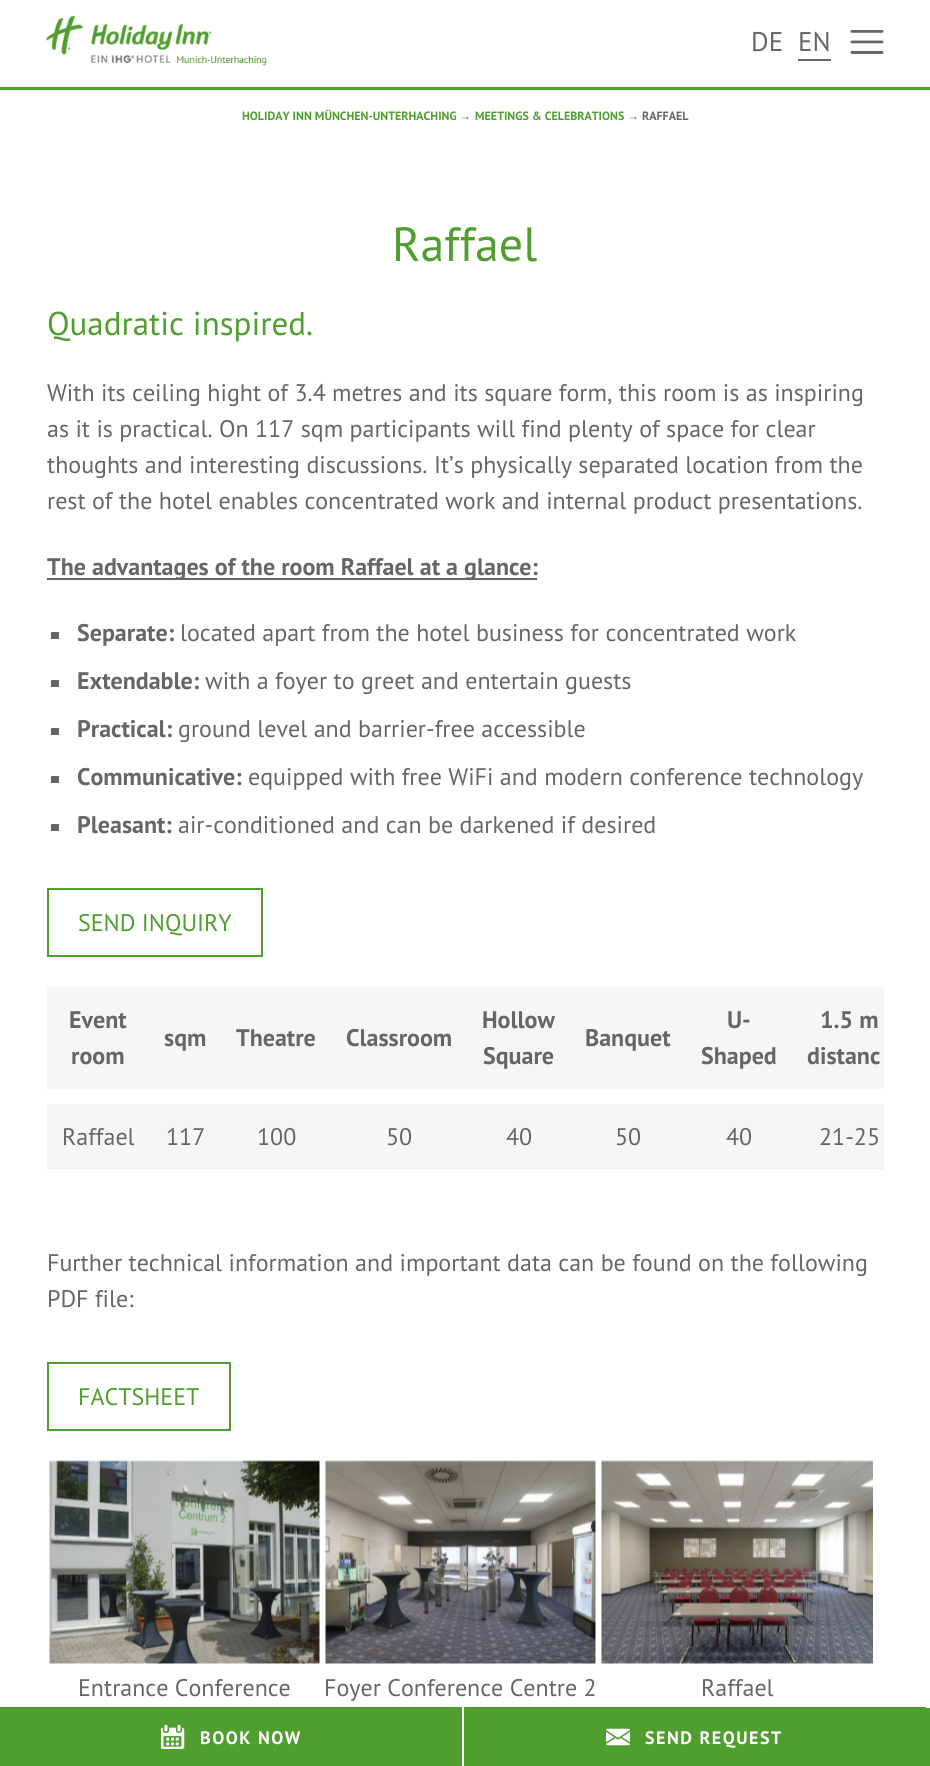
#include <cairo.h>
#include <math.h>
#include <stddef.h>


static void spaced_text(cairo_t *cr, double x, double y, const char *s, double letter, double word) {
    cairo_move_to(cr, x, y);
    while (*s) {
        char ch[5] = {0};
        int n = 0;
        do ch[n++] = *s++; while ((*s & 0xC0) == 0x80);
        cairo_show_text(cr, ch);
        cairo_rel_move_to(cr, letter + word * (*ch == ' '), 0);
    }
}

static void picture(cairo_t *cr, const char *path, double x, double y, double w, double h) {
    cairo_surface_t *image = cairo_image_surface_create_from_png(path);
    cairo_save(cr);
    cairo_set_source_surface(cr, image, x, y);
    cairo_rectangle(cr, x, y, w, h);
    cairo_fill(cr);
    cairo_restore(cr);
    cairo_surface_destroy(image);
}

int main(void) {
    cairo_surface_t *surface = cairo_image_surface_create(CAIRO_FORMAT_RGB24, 930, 1766);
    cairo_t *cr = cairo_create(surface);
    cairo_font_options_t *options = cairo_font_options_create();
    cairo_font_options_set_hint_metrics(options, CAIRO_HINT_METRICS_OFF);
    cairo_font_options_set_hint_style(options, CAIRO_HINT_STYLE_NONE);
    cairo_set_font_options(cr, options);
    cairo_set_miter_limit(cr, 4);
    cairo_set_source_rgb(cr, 1, 1, 1);
    cairo_paint(cr);
    cairo_set_source_rgb(cr, 0.314, 0.62, 0.184);
    cairo_rectangle(cr, 0, 87, 930, 3);
    cairo_fill(cr);
    picture(cr, "img1.png", 46, 15, 221, 51);
    cairo_select_font_face(cr, "PT Sans", CAIRO_FONT_SLANT_NORMAL, CAIRO_FONT_WEIGHT_NORMAL);
    cairo_set_font_size(cr, 27);
    cairo_set_source_rgb(cr, 0.4, 0.4, 0.4);
    cairo_move_to(cr, 751, 51);
    cairo_show_text(cr, "DE");
    cairo_rectangle(cr, 798, 59, 33, 2);
    cairo_fill(cr);
    cairo_move_to(cr, 798, 51);
    cairo_show_text(cr, "EN");
    picture(cr, "img2.png", 850, 30, 34, 24);
    cairo_select_font_face(cr, "PT Sans", CAIRO_FONT_SLANT_NORMAL, CAIRO_FONT_WEIGHT_BOLD);
    cairo_set_font_size(cr, 12);
    cairo_set_source_rgb(cr, 0.314, 0.62, 0.184);
    cairo_move_to(cr, 242, 120);
    cairo_show_text(cr, "HOLIDAY INN MÜNCHEN-UNTERHACHING");
    cairo_select_font_face(cr, "Liberation Sans", CAIRO_FONT_SLANT_NORMAL, CAIRO_FONT_WEIGHT_BOLD);
    cairo_set_source_rgb(cr, 0.4, 0.4, 0.4);
    cairo_move_to(cr, 459, 120);
    cairo_show_text(cr, "→");
    cairo_select_font_face(cr, "PT Sans", CAIRO_FONT_SLANT_NORMAL, CAIRO_FONT_WEIGHT_BOLD);
    cairo_set_source_rgb(cr, 0.314, 0.62, 0.184);
    cairo_move_to(cr, 475, 120);
    cairo_show_text(cr, "MEETINGS & CELEBRATIONS");
    cairo_select_font_face(cr, "Liberation Sans", CAIRO_FONT_SLANT_NORMAL, CAIRO_FONT_WEIGHT_BOLD);
    cairo_set_source_rgb(cr, 0.4, 0.4, 0.4);
    cairo_move_to(cr, 627, 120);
    cairo_show_text(cr, "→");
    cairo_select_font_face(cr, "PT Sans", CAIRO_FONT_SLANT_NORMAL, CAIRO_FONT_WEIGHT_BOLD);
    cairo_move_to(cr, 642, 120);
    cairo_show_text(cr, "RAFFAEL");
    cairo_select_font_face(cr, "PT Sans", CAIRO_FONT_SLANT_NORMAL, CAIRO_FONT_WEIGHT_NORMAL);
    cairo_set_font_size(cr, 48);
    cairo_set_source_rgb(cr, 0.314, 0.62, 0.184);
    cairo_move_to(cr, 392, 261);
    cairo_show_text(cr, "Raffael");
    cairo_set_font_size(cr, 33);
    cairo_move_to(cr, 47, 335);
    cairo_show_text(cr, "Quadratic inspired.");
    cairo_set_font_size(cr, 24);
    cairo_set_source_rgb(cr, 0.4, 0.4, 0.4);
    cairo_move_to(cr, 47, 401);
    cairo_show_text(cr, "With its ceiling hight of 3.4 metres and its square form, this room is as inspiring");
    cairo_move_to(cr, 47, 437);
    cairo_show_text(cr, "as it is practical. On 117 sqm participants will find plenty of space for clear");
    cairo_move_to(cr, 47, 473);
    cairo_show_text(cr, "thoughts and interesting discussions. It’s physically separated location from the");
    cairo_move_to(cr, 47, 509);
    cairo_show_text(cr, "rest of the hotel enables concentrated work and internal product presentations.");
    cairo_rectangle(cr, 47, 578, 490, 2);
    cairo_fill(cr);
    cairo_select_font_face(cr, "PT Sans", CAIRO_FONT_SLANT_NORMAL, CAIRO_FONT_WEIGHT_BOLD);
    cairo_move_to(cr, 47, 575);
    cairo_show_text(cr, "The advantages of the room Raffael at a glance:");
    cairo_rectangle(cr, 51, 632, 8, 7);
    cairo_fill(cr);
    cairo_move_to(cr, 77, 641);
    cairo_show_text(cr, "Separate:");
    cairo_select_font_face(cr, "PT Sans", CAIRO_FONT_SLANT_NORMAL, CAIRO_FONT_WEIGHT_NORMAL);
    cairo_move_to(cr, 180, 641);
    cairo_show_text(cr, "located apart from the hotel business for concentrated work");
    cairo_rectangle(cr, 51, 680, 8, 7);
    cairo_fill(cr);
    cairo_select_font_face(cr, "PT Sans", CAIRO_FONT_SLANT_NORMAL, CAIRO_FONT_WEIGHT_BOLD);
    cairo_move_to(cr, 77, 689);
    cairo_show_text(cr, "Extendable:");
    cairo_select_font_face(cr, "PT Sans", CAIRO_FONT_SLANT_NORMAL, CAIRO_FONT_WEIGHT_NORMAL);
    cairo_move_to(cr, 205, 689);
    cairo_show_text(cr, "with a foyer to greet and entertain guests");
    cairo_rectangle(cr, 51, 728, 8, 7);
    cairo_fill(cr);
    cairo_select_font_face(cr, "PT Sans", CAIRO_FONT_SLANT_NORMAL, CAIRO_FONT_WEIGHT_BOLD);
    cairo_move_to(cr, 77, 737);
    cairo_show_text(cr, "Practical:");
    cairo_select_font_face(cr, "PT Sans", CAIRO_FONT_SLANT_NORMAL, CAIRO_FONT_WEIGHT_NORMAL);
    cairo_move_to(cr, 178, 737);
    cairo_show_text(cr, "ground level and barrier-free accessible");
    cairo_rectangle(cr, 51, 776, 8, 7);
    cairo_fill(cr);
    cairo_select_font_face(cr, "PT Sans", CAIRO_FONT_SLANT_NORMAL, CAIRO_FONT_WEIGHT_BOLD);
    cairo_move_to(cr, 77, 785);
    cairo_show_text(cr, "Communicative:");
    cairo_select_font_face(cr, "PT Sans", CAIRO_FONT_SLANT_NORMAL, CAIRO_FONT_WEIGHT_NORMAL);
    cairo_move_to(cr, 248, 785);
    cairo_show_text(cr, "equipped with free WiFi and modern conference technology");
    cairo_rectangle(cr, 51, 824, 8, 7);
    cairo_fill(cr);
    cairo_select_font_face(cr, "PT Sans", CAIRO_FONT_SLANT_NORMAL, CAIRO_FONT_WEIGHT_BOLD);
    cairo_move_to(cr, 77, 833);
    cairo_show_text(cr, "Pleasant:");
    cairo_select_font_face(cr, "PT Sans", CAIRO_FONT_SLANT_NORMAL, CAIRO_FONT_WEIGHT_NORMAL);
    cairo_move_to(cr, 178, 833);
    cairo_show_text(cr, "air-conditioned and can be darkened if desired");
    cairo_rectangle(cr, 48, 889, 214, 67);
    cairo_set_source_rgb(cr, 0.314, 0.62, 0.184);
    cairo_stroke(cr);
    cairo_move_to(cr, 78, 931);
    cairo_show_text(cr, "SEND INQUIRY");
    cairo_set_source_rgb(cr, 0.961, 0.961, 0.961);
    cairo_rectangle(cr, 47, 987, 837, 102);
    cairo_fill(cr);
    cairo_select_font_face(cr, "PT Sans", CAIRO_FONT_SLANT_NORMAL, CAIRO_FONT_WEIGHT_BOLD);
    cairo_set_source_rgb(cr, 0.4, 0.4, 0.4);
    cairo_move_to(cr, 69, 1028);
    cairo_show_text(cr, "Event");
    cairo_move_to(cr, 71, 1064);
    cairo_show_text(cr, "room");
    cairo_move_to(cr, 164, 1046);
    cairo_show_text(cr, "sqm");
    cairo_move_to(cr, 236, 1046);
    cairo_show_text(cr, "Theatre");
    cairo_move_to(cr, 346, 1046);
    cairo_show_text(cr, "Classroom");
    cairo_move_to(cr, 482, 1028);
    cairo_show_text(cr, "Hollow");
    cairo_move_to(cr, 483, 1064);
    cairo_show_text(cr, "Square");
    cairo_move_to(cr, 585, 1046);
    cairo_show_text(cr, "Banquet");
    cairo_move_to(cr, 727, 1028);
    cairo_show_text(cr, "U-");
    cairo_move_to(cr, 701, 1064);
    cairo_show_text(cr, "Shaped");
    cairo_move_to(cr, 820, 1028);
    cairo_show_text(cr, "1.5 m");
    cairo_move_to(cr, 807, 1064);
    cairo_show_text(cr, "distanc");
    cairo_set_source_rgb(cr, 0.961, 0.961, 0.961);
    cairo_rectangle(cr, 47, 1104, 837, 66);
    cairo_fill(cr);
    cairo_select_font_face(cr, "PT Sans", CAIRO_FONT_SLANT_NORMAL, CAIRO_FONT_WEIGHT_NORMAL);
    cairo_set_source_rgb(cr, 0.4, 0.4, 0.4);
    cairo_move_to(cr, 62, 1145);
    cairo_show_text(cr, "Raffael");
    cairo_move_to(cr, 166, 1145);
    cairo_show_text(cr, "117");
    cairo_move_to(cr, 257, 1145);
    cairo_show_text(cr, "100");
    cairo_move_to(cr, 386, 1145);
    cairo_show_text(cr, "50");
    cairo_move_to(cr, 506, 1145);
    cairo_show_text(cr, "40");
    cairo_move_to(cr, 615, 1145);
    cairo_show_text(cr, "50");
    cairo_move_to(cr, 726, 1145);
    cairo_show_text(cr, "40");
    cairo_move_to(cr, 819, 1145);
    cairo_show_text(cr, "21-25");
    cairo_move_to(cr, 47, 1271);
    cairo_show_text(cr, "Further technical information and important data can be found on the following");
    cairo_move_to(cr, 47, 1307);
    cairo_show_text(cr, "PDF file:");
    cairo_rectangle(cr, 48, 1363, 182, 67);
    cairo_set_source_rgb(cr, 0.314, 0.62, 0.184);
    cairo_stroke(cr);
    cairo_move_to(cr, 78, 1405);
    cairo_show_text(cr, "FACTSHEET");
    picture(cr, "img3.png", 49, 1460, 271, 204);
    cairo_set_source_rgb(cr, 0.4, 0.4, 0.4);
    cairo_move_to(cr, 78, 1696);
    cairo_show_text(cr, "Entrance Conference");
    picture(cr, "img4.png", 325, 1460, 271, 204);
    cairo_move_to(cr, 324, 1696);
    cairo_show_text(cr, "Foyer Conference Centre 2");
    picture(cr, "img5.png", 601, 1460, 272, 204);
    cairo_move_to(cr, 701, 1696);
    cairo_show_text(cr, "Raffael");
    cairo_set_source_rgb(cr, 0.314, 0.62, 0.184);
    cairo_rectangle(cr, 926, 1708, 4, 58);
    cairo_fill(cr);
    cairo_rectangle(cr, 0, 1707, 462, 59);
    cairo_fill(cr);
    picture(cr, "img6.png", 161, 1725, 24, 24);
    cairo_select_font_face(cr, "PT Sans", CAIRO_FONT_SLANT_NORMAL, CAIRO_FONT_WEIGHT_BOLD);
    cairo_set_font_size(cr, 18);
    cairo_set_source_rgb(cr, 1, 1, 1);
    spaced_text(cr, 200, 1744, "BOOK NOW", 1.5, 0);
    cairo_set_source_rgb(cr, 0.314, 0.62, 0.184);
    cairo_rectangle(cr, 464, 1707, 462, 59);
    cairo_fill(cr);
    picture(cr, "img7.png", 606, 1728, 24, 18);
    cairo_set_source_rgb(cr, 1, 1, 1);
    spaced_text(cr, 645, 1744, "SEND REQUEST", 1.5, 0);
    cairo_surface_write_to_png(surface, "page.png");
    cairo_font_options_destroy(options);
    cairo_destroy(cr);
    cairo_surface_destroy(surface);
    return 0;
}
